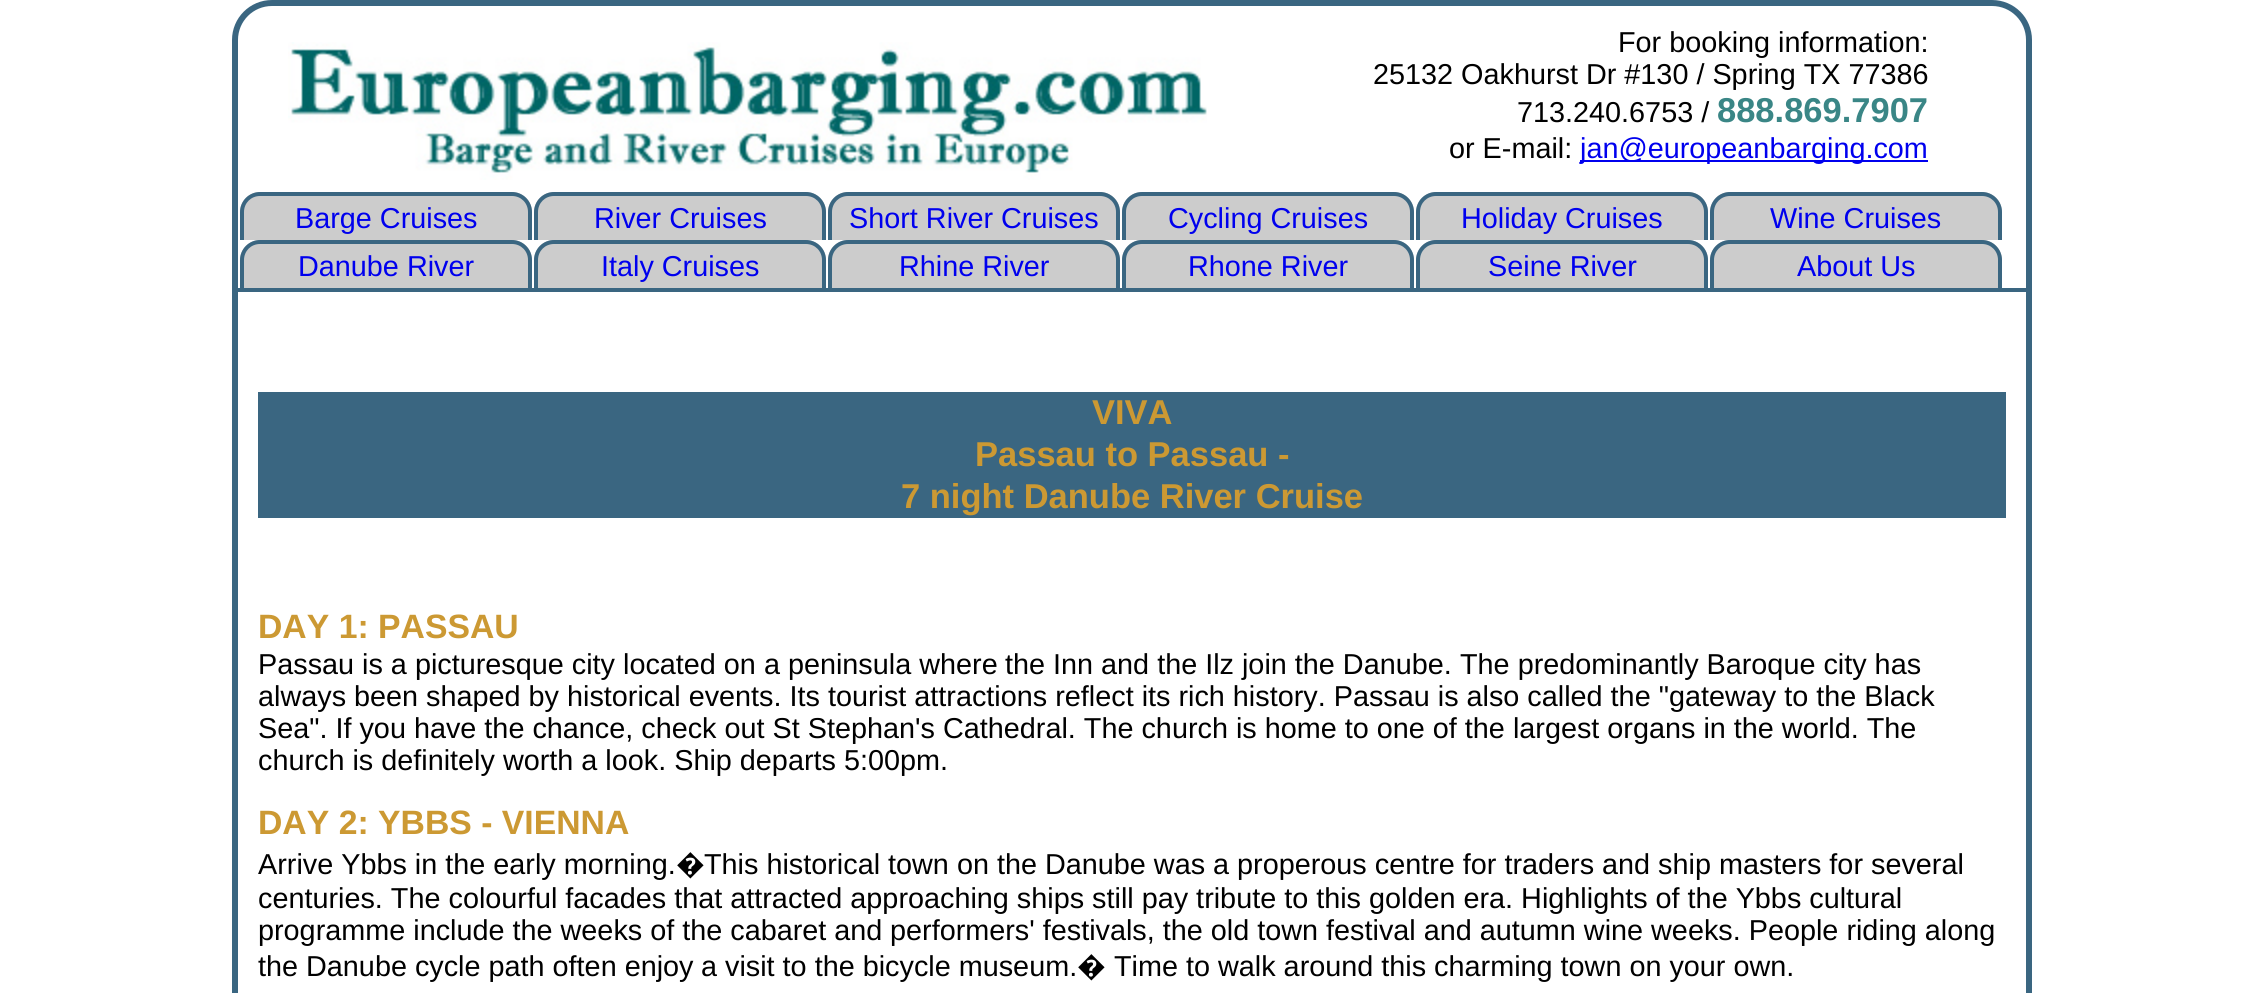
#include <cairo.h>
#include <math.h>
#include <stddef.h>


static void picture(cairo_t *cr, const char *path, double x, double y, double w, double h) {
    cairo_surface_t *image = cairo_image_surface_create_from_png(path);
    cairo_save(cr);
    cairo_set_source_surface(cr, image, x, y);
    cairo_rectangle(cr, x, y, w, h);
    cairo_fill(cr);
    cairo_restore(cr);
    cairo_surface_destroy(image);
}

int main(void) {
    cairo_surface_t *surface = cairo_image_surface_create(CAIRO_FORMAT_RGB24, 2263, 993);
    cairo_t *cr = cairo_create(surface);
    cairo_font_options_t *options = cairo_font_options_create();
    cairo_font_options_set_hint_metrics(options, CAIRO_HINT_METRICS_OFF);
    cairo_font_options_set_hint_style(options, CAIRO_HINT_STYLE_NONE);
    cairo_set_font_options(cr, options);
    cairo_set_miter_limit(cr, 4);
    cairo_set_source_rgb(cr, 1, 1, 1);
    cairo_paint(cr);
    cairo_new_path(cr);
    cairo_move_to(cr, 272, 3);
    cairo_line_to(cr, 1992, 3);
    cairo_curve_to(cr, 2012.5, 3, 2029, 19.5, 2029, 40);
    cairo_line_to(cr, 2029, 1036);
    cairo_line_to(cr, 235, 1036);
    cairo_line_to(cr, 235, 40);
    cairo_curve_to(cr, 235, 19.5, 251.5, 3, 272, 3);
    cairo_close_path(cr);
    cairo_set_source_rgb(cr, 0.227, 0.4, 0.506);
    cairo_set_line_width(cr, 6);
    cairo_stroke(cr);
    picture(cr, "img1.png", 288, 42, 919, 138);
    cairo_select_font_face(cr, "Liberation Sans", CAIRO_FONT_SLANT_NORMAL, CAIRO_FONT_WEIGHT_NORMAL);
    cairo_set_font_size(cr, 28.8);
    cairo_set_source_rgb(cr, 0, 0, 0);
    cairo_move_to(cr, 1618, 52);
    cairo_show_text(cr, "For booking information:");
    cairo_move_to(cr, 1373, 84);
    cairo_show_text(cr, "25132 Oakhurst Dr #130 / Spring TX 77386");
    cairo_move_to(cr, 1517, 122);
    cairo_show_text(cr, "713.240.6753 /");
    cairo_select_font_face(cr, "Liberation Sans", CAIRO_FONT_SLANT_NORMAL, CAIRO_FONT_WEIGHT_BOLD);
    cairo_set_font_size(cr, 34.5);
    cairo_set_source_rgb(cr, 0.227, 0.525, 0.525);
    cairo_move_to(cr, 1717, 122);
    cairo_show_text(cr, "888.869.7907");
    cairo_select_font_face(cr, "Liberation Sans", CAIRO_FONT_SLANT_NORMAL, CAIRO_FONT_WEIGHT_NORMAL);
    cairo_set_font_size(cr, 28.8);
    cairo_set_source_rgb(cr, 0, 0, 0);
    cairo_move_to(cr, 1449, 158);
    cairo_show_text(cr, "or E-mail:");
    cairo_set_source_rgb(cr, 0, 0, 0.933);
    cairo_rectangle(cr, 1580, 160, 348, 2);
    cairo_fill(cr);
    cairo_move_to(cr, 1580, 158);
    cairo_show_text(cr, "jan@europeanbarging.com");
    cairo_set_source_rgb(cr, 0.8, 0.8, 0.8);
    cairo_new_path(cr);
    cairo_move_to(cr, 260, 192);
    cairo_line_to(cr, 512, 192);
    cairo_curve_to(cr, 523, 192, 532, 201, 532, 212);
    cairo_line_to(cr, 532, 240);
    cairo_line_to(cr, 240, 240);
    cairo_line_to(cr, 240, 212);
    cairo_curve_to(cr, 240, 201, 249, 192, 260, 192);
    cairo_close_path(cr);
    cairo_fill(cr);
    cairo_set_source_rgb(cr, 0.227, 0.4, 0.506);
    cairo_set_fill_rule(cr, CAIRO_FILL_RULE_EVEN_ODD);
    cairo_new_path(cr);
    cairo_move_to(cr, 260, 192);
    cairo_line_to(cr, 512, 192);
    cairo_curve_to(cr, 523, 192, 532, 201, 532, 212);
    cairo_line_to(cr, 532, 240);
    cairo_line_to(cr, 240, 240);
    cairo_line_to(cr, 240, 212);
    cairo_curve_to(cr, 240, 201, 249, 192, 260, 192);
    cairo_close_path(cr);
    cairo_move_to(cr, 260, 196);
    cairo_line_to(cr, 512, 196);
    cairo_curve_to(cr, 521, 196, 528, 203, 528, 212);
    cairo_line_to(cr, 528, 240);
    cairo_line_to(cr, 244, 240);
    cairo_line_to(cr, 244, 212);
    cairo_curve_to(cr, 244, 203, 251, 196, 260, 196);
    cairo_close_path(cr);
    cairo_fill(cr);
    cairo_set_source_rgb(cr, 0, 0, 0.933);
    cairo_move_to(cr, 295, 228);
    cairo_show_text(cr, "Barge Cruises");
    cairo_set_source_rgb(cr, 0.8, 0.8, 0.8);
    cairo_new_path(cr);
    cairo_move_to(cr, 554, 192);
    cairo_line_to(cr, 806, 192);
    cairo_curve_to(cr, 817, 192, 826, 201, 826, 212);
    cairo_line_to(cr, 826, 240);
    cairo_line_to(cr, 534, 240);
    cairo_line_to(cr, 534, 212);
    cairo_curve_to(cr, 534, 201, 543, 192, 554, 192);
    cairo_close_path(cr);
    cairo_fill(cr);
    cairo_set_source_rgb(cr, 0.227, 0.4, 0.506);
    cairo_new_path(cr);
    cairo_move_to(cr, 554, 192);
    cairo_line_to(cr, 806, 192);
    cairo_curve_to(cr, 817, 192, 826, 201, 826, 212);
    cairo_line_to(cr, 826, 240);
    cairo_line_to(cr, 534, 240);
    cairo_line_to(cr, 534, 212);
    cairo_curve_to(cr, 534, 201, 543, 192, 554, 192);
    cairo_close_path(cr);
    cairo_move_to(cr, 554, 196);
    cairo_line_to(cr, 806, 196);
    cairo_curve_to(cr, 815, 196, 822, 203, 822, 212);
    cairo_line_to(cr, 822, 240);
    cairo_line_to(cr, 538, 240);
    cairo_line_to(cr, 538, 212);
    cairo_curve_to(cr, 538, 203, 545, 196, 554, 196);
    cairo_close_path(cr);
    cairo_fill(cr);
    cairo_set_source_rgb(cr, 0, 0, 0.933);
    cairo_move_to(cr, 594, 228);
    cairo_show_text(cr, "River Cruises");
    cairo_set_source_rgb(cr, 0.8, 0.8, 0.8);
    cairo_new_path(cr);
    cairo_move_to(cr, 848, 192);
    cairo_line_to(cr, 1100, 192);
    cairo_curve_to(cr, 1111, 192, 1120, 201, 1120, 212);
    cairo_line_to(cr, 1120, 240);
    cairo_line_to(cr, 828, 240);
    cairo_line_to(cr, 828, 212);
    cairo_curve_to(cr, 828, 201, 837, 192, 848, 192);
    cairo_close_path(cr);
    cairo_fill(cr);
    cairo_set_source_rgb(cr, 0.227, 0.4, 0.506);
    cairo_new_path(cr);
    cairo_move_to(cr, 848, 192);
    cairo_line_to(cr, 1100, 192);
    cairo_curve_to(cr, 1111, 192, 1120, 201, 1120, 212);
    cairo_line_to(cr, 1120, 240);
    cairo_line_to(cr, 828, 240);
    cairo_line_to(cr, 828, 212);
    cairo_curve_to(cr, 828, 201, 837, 192, 848, 192);
    cairo_close_path(cr);
    cairo_move_to(cr, 848, 196);
    cairo_line_to(cr, 1100, 196);
    cairo_curve_to(cr, 1109, 196, 1116, 203, 1116, 212);
    cairo_line_to(cr, 1116, 240);
    cairo_line_to(cr, 832, 240);
    cairo_line_to(cr, 832, 212);
    cairo_curve_to(cr, 832, 203, 839, 196, 848, 196);
    cairo_close_path(cr);
    cairo_fill(cr);
    cairo_set_source_rgb(cr, 0, 0, 0.933);
    cairo_move_to(cr, 849, 228);
    cairo_show_text(cr, "Short River Cruises");
    cairo_set_source_rgb(cr, 0.8, 0.8, 0.8);
    cairo_new_path(cr);
    cairo_move_to(cr, 1142, 192);
    cairo_line_to(cr, 1394, 192);
    cairo_curve_to(cr, 1405, 192, 1414, 201, 1414, 212);
    cairo_line_to(cr, 1414, 240);
    cairo_line_to(cr, 1122, 240);
    cairo_line_to(cr, 1122, 212);
    cairo_curve_to(cr, 1122, 201, 1131, 192, 1142, 192);
    cairo_close_path(cr);
    cairo_fill(cr);
    cairo_set_source_rgb(cr, 0.227, 0.4, 0.506);
    cairo_new_path(cr);
    cairo_move_to(cr, 1142, 192);
    cairo_line_to(cr, 1394, 192);
    cairo_curve_to(cr, 1405, 192, 1414, 201, 1414, 212);
    cairo_line_to(cr, 1414, 240);
    cairo_line_to(cr, 1122, 240);
    cairo_line_to(cr, 1122, 212);
    cairo_curve_to(cr, 1122, 201, 1131, 192, 1142, 192);
    cairo_close_path(cr);
    cairo_move_to(cr, 1142, 196);
    cairo_line_to(cr, 1394, 196);
    cairo_curve_to(cr, 1403, 196, 1410, 203, 1410, 212);
    cairo_line_to(cr, 1410, 240);
    cairo_line_to(cr, 1126, 240);
    cairo_line_to(cr, 1126, 212);
    cairo_curve_to(cr, 1126, 203, 1133, 196, 1142, 196);
    cairo_close_path(cr);
    cairo_fill(cr);
    cairo_set_source_rgb(cr, 0, 0, 0.933);
    cairo_move_to(cr, 1168, 228);
    cairo_show_text(cr, "Cycling Cruises");
    cairo_set_source_rgb(cr, 0.8, 0.8, 0.8);
    cairo_new_path(cr);
    cairo_move_to(cr, 1436, 192);
    cairo_line_to(cr, 1688, 192);
    cairo_curve_to(cr, 1699, 192, 1708, 201, 1708, 212);
    cairo_line_to(cr, 1708, 240);
    cairo_line_to(cr, 1416, 240);
    cairo_line_to(cr, 1416, 212);
    cairo_curve_to(cr, 1416, 201, 1425, 192, 1436, 192);
    cairo_close_path(cr);
    cairo_fill(cr);
    cairo_set_source_rgb(cr, 0.227, 0.4, 0.506);
    cairo_new_path(cr);
    cairo_move_to(cr, 1436, 192);
    cairo_line_to(cr, 1688, 192);
    cairo_curve_to(cr, 1699, 192, 1708, 201, 1708, 212);
    cairo_line_to(cr, 1708, 240);
    cairo_line_to(cr, 1416, 240);
    cairo_line_to(cr, 1416, 212);
    cairo_curve_to(cr, 1416, 201, 1425, 192, 1436, 192);
    cairo_close_path(cr);
    cairo_move_to(cr, 1436, 196);
    cairo_line_to(cr, 1688, 196);
    cairo_curve_to(cr, 1697, 196, 1704, 203, 1704, 212);
    cairo_line_to(cr, 1704, 240);
    cairo_line_to(cr, 1420, 240);
    cairo_line_to(cr, 1420, 212);
    cairo_curve_to(cr, 1420, 203, 1427, 196, 1436, 196);
    cairo_close_path(cr);
    cairo_fill(cr);
    cairo_set_source_rgb(cr, 0, 0, 0.933);
    cairo_move_to(cr, 1461, 228);
    cairo_show_text(cr, "Holiday Cruises");
    cairo_set_source_rgb(cr, 0.8, 0.8, 0.8);
    cairo_new_path(cr);
    cairo_move_to(cr, 1730, 192);
    cairo_line_to(cr, 1982, 192);
    cairo_curve_to(cr, 1993, 192, 2002, 201, 2002, 212);
    cairo_line_to(cr, 2002, 240);
    cairo_line_to(cr, 1710, 240);
    cairo_line_to(cr, 1710, 212);
    cairo_curve_to(cr, 1710, 201, 1719, 192, 1730, 192);
    cairo_close_path(cr);
    cairo_fill(cr);
    cairo_set_source_rgb(cr, 0.227, 0.4, 0.506);
    cairo_new_path(cr);
    cairo_move_to(cr, 1730, 192);
    cairo_line_to(cr, 1982, 192);
    cairo_curve_to(cr, 1993, 192, 2002, 201, 2002, 212);
    cairo_line_to(cr, 2002, 240);
    cairo_line_to(cr, 1710, 240);
    cairo_line_to(cr, 1710, 212);
    cairo_curve_to(cr, 1710, 201, 1719, 192, 1730, 192);
    cairo_close_path(cr);
    cairo_move_to(cr, 1730, 196);
    cairo_line_to(cr, 1982, 196);
    cairo_curve_to(cr, 1991, 196, 1998, 203, 1998, 212);
    cairo_line_to(cr, 1998, 240);
    cairo_line_to(cr, 1714, 240);
    cairo_line_to(cr, 1714, 212);
    cairo_curve_to(cr, 1714, 203, 1721, 196, 1730, 196);
    cairo_close_path(cr);
    cairo_fill(cr);
    cairo_set_source_rgb(cr, 0, 0, 0.933);
    cairo_move_to(cr, 1770, 228);
    cairo_show_text(cr, "Wine Cruises");
    cairo_set_source_rgb(cr, 0.8, 0.8, 0.8);
    cairo_new_path(cr);
    cairo_move_to(cr, 260, 240);
    cairo_line_to(cr, 512, 240);
    cairo_curve_to(cr, 523, 240, 532, 249, 532, 260);
    cairo_line_to(cr, 532, 288);
    cairo_line_to(cr, 240, 288);
    cairo_line_to(cr, 240, 260);
    cairo_curve_to(cr, 240, 249, 249, 240, 260, 240);
    cairo_close_path(cr);
    cairo_fill(cr);
    cairo_set_source_rgb(cr, 0.227, 0.4, 0.506);
    cairo_new_path(cr);
    cairo_move_to(cr, 260, 240);
    cairo_line_to(cr, 512, 240);
    cairo_curve_to(cr, 523, 240, 532, 249, 532, 260);
    cairo_line_to(cr, 532, 288);
    cairo_line_to(cr, 240, 288);
    cairo_line_to(cr, 240, 260);
    cairo_curve_to(cr, 240, 249, 249, 240, 260, 240);
    cairo_close_path(cr);
    cairo_move_to(cr, 260, 244);
    cairo_line_to(cr, 512, 244);
    cairo_curve_to(cr, 521, 244, 528, 251, 528, 260);
    cairo_line_to(cr, 528, 288);
    cairo_line_to(cr, 244, 288);
    cairo_line_to(cr, 244, 260);
    cairo_curve_to(cr, 244, 251, 251, 244, 260, 244);
    cairo_close_path(cr);
    cairo_fill(cr);
    cairo_set_source_rgb(cr, 0, 0, 0.933);
    cairo_move_to(cr, 298, 276);
    cairo_show_text(cr, "Danube River");
    cairo_set_source_rgb(cr, 0.8, 0.8, 0.8);
    cairo_new_path(cr);
    cairo_move_to(cr, 554, 240);
    cairo_line_to(cr, 806, 240);
    cairo_curve_to(cr, 817, 240, 826, 249, 826, 260);
    cairo_line_to(cr, 826, 288);
    cairo_line_to(cr, 534, 288);
    cairo_line_to(cr, 534, 260);
    cairo_curve_to(cr, 534, 249, 543, 240, 554, 240);
    cairo_close_path(cr);
    cairo_fill(cr);
    cairo_set_source_rgb(cr, 0.227, 0.4, 0.506);
    cairo_new_path(cr);
    cairo_move_to(cr, 554, 240);
    cairo_line_to(cr, 806, 240);
    cairo_curve_to(cr, 817, 240, 826, 249, 826, 260);
    cairo_line_to(cr, 826, 288);
    cairo_line_to(cr, 534, 288);
    cairo_line_to(cr, 534, 260);
    cairo_curve_to(cr, 534, 249, 543, 240, 554, 240);
    cairo_close_path(cr);
    cairo_move_to(cr, 554, 244);
    cairo_line_to(cr, 806, 244);
    cairo_curve_to(cr, 815, 244, 822, 251, 822, 260);
    cairo_line_to(cr, 822, 288);
    cairo_line_to(cr, 538, 288);
    cairo_line_to(cr, 538, 260);
    cairo_curve_to(cr, 538, 251, 545, 244, 554, 244);
    cairo_close_path(cr);
    cairo_fill(cr);
    cairo_set_source_rgb(cr, 0, 0, 0.933);
    cairo_move_to(cr, 601, 276);
    cairo_show_text(cr, "Italy Cruises");
    cairo_set_source_rgb(cr, 0.8, 0.8, 0.8);
    cairo_new_path(cr);
    cairo_move_to(cr, 848, 240);
    cairo_line_to(cr, 1100, 240);
    cairo_curve_to(cr, 1111, 240, 1120, 249, 1120, 260);
    cairo_line_to(cr, 1120, 288);
    cairo_line_to(cr, 828, 288);
    cairo_line_to(cr, 828, 260);
    cairo_curve_to(cr, 828, 249, 837, 240, 848, 240);
    cairo_close_path(cr);
    cairo_fill(cr);
    cairo_set_source_rgb(cr, 0.227, 0.4, 0.506);
    cairo_new_path(cr);
    cairo_move_to(cr, 848, 240);
    cairo_line_to(cr, 1100, 240);
    cairo_curve_to(cr, 1111, 240, 1120, 249, 1120, 260);
    cairo_line_to(cr, 1120, 288);
    cairo_line_to(cr, 828, 288);
    cairo_line_to(cr, 828, 260);
    cairo_curve_to(cr, 828, 249, 837, 240, 848, 240);
    cairo_close_path(cr);
    cairo_move_to(cr, 848, 244);
    cairo_line_to(cr, 1100, 244);
    cairo_curve_to(cr, 1109, 244, 1116, 251, 1116, 260);
    cairo_line_to(cr, 1116, 288);
    cairo_line_to(cr, 832, 288);
    cairo_line_to(cr, 832, 260);
    cairo_curve_to(cr, 832, 251, 839, 244, 848, 244);
    cairo_close_path(cr);
    cairo_fill(cr);
    cairo_set_source_rgb(cr, 0, 0, 0.933);
    cairo_move_to(cr, 899, 276);
    cairo_show_text(cr, "Rhine River");
    cairo_set_source_rgb(cr, 0.8, 0.8, 0.8);
    cairo_new_path(cr);
    cairo_move_to(cr, 1142, 240);
    cairo_line_to(cr, 1394, 240);
    cairo_curve_to(cr, 1405, 240, 1414, 249, 1414, 260);
    cairo_line_to(cr, 1414, 288);
    cairo_line_to(cr, 1122, 288);
    cairo_line_to(cr, 1122, 260);
    cairo_curve_to(cr, 1122, 249, 1131, 240, 1142, 240);
    cairo_close_path(cr);
    cairo_fill(cr);
    cairo_set_source_rgb(cr, 0.227, 0.4, 0.506);
    cairo_new_path(cr);
    cairo_move_to(cr, 1142, 240);
    cairo_line_to(cr, 1394, 240);
    cairo_curve_to(cr, 1405, 240, 1414, 249, 1414, 260);
    cairo_line_to(cr, 1414, 288);
    cairo_line_to(cr, 1122, 288);
    cairo_line_to(cr, 1122, 260);
    cairo_curve_to(cr, 1122, 249, 1131, 240, 1142, 240);
    cairo_close_path(cr);
    cairo_move_to(cr, 1142, 244);
    cairo_line_to(cr, 1394, 244);
    cairo_curve_to(cr, 1403, 244, 1410, 251, 1410, 260);
    cairo_line_to(cr, 1410, 288);
    cairo_line_to(cr, 1126, 288);
    cairo_line_to(cr, 1126, 260);
    cairo_curve_to(cr, 1126, 251, 1133, 244, 1142, 244);
    cairo_close_path(cr);
    cairo_fill(cr);
    cairo_set_source_rgb(cr, 0, 0, 0.933);
    cairo_move_to(cr, 1188, 276);
    cairo_show_text(cr, "Rhone River");
    cairo_set_source_rgb(cr, 0.8, 0.8, 0.8);
    cairo_new_path(cr);
    cairo_move_to(cr, 1436, 240);
    cairo_line_to(cr, 1688, 240);
    cairo_curve_to(cr, 1699, 240, 1708, 249, 1708, 260);
    cairo_line_to(cr, 1708, 288);
    cairo_line_to(cr, 1416, 288);
    cairo_line_to(cr, 1416, 260);
    cairo_curve_to(cr, 1416, 249, 1425, 240, 1436, 240);
    cairo_close_path(cr);
    cairo_fill(cr);
    cairo_set_source_rgb(cr, 0.227, 0.4, 0.506);
    cairo_new_path(cr);
    cairo_move_to(cr, 1436, 240);
    cairo_line_to(cr, 1688, 240);
    cairo_curve_to(cr, 1699, 240, 1708, 249, 1708, 260);
    cairo_line_to(cr, 1708, 288);
    cairo_line_to(cr, 1416, 288);
    cairo_line_to(cr, 1416, 260);
    cairo_curve_to(cr, 1416, 249, 1425, 240, 1436, 240);
    cairo_close_path(cr);
    cairo_move_to(cr, 1436, 244);
    cairo_line_to(cr, 1688, 244);
    cairo_curve_to(cr, 1697, 244, 1704, 251, 1704, 260);
    cairo_line_to(cr, 1704, 288);
    cairo_line_to(cr, 1420, 288);
    cairo_line_to(cr, 1420, 260);
    cairo_curve_to(cr, 1420, 251, 1427, 244, 1436, 244);
    cairo_close_path(cr);
    cairo_fill(cr);
    cairo_set_source_rgb(cr, 0, 0, 0.933);
    cairo_move_to(cr, 1488, 276);
    cairo_show_text(cr, "Seine River");
    cairo_set_source_rgb(cr, 0.8, 0.8, 0.8);
    cairo_new_path(cr);
    cairo_move_to(cr, 1730, 240);
    cairo_line_to(cr, 1982, 240);
    cairo_curve_to(cr, 1993, 240, 2002, 249, 2002, 260);
    cairo_line_to(cr, 2002, 288);
    cairo_line_to(cr, 1710, 288);
    cairo_line_to(cr, 1710, 260);
    cairo_curve_to(cr, 1710, 249, 1719, 240, 1730, 240);
    cairo_close_path(cr);
    cairo_fill(cr);
    cairo_set_source_rgb(cr, 0.227, 0.4, 0.506);
    cairo_new_path(cr);
    cairo_move_to(cr, 1730, 240);
    cairo_line_to(cr, 1982, 240);
    cairo_curve_to(cr, 1993, 240, 2002, 249, 2002, 260);
    cairo_line_to(cr, 2002, 288);
    cairo_line_to(cr, 1710, 288);
    cairo_line_to(cr, 1710, 260);
    cairo_curve_to(cr, 1710, 249, 1719, 240, 1730, 240);
    cairo_close_path(cr);
    cairo_move_to(cr, 1730, 244);
    cairo_line_to(cr, 1982, 244);
    cairo_curve_to(cr, 1991, 244, 1998, 251, 1998, 260);
    cairo_line_to(cr, 1998, 288);
    cairo_line_to(cr, 1714, 288);
    cairo_line_to(cr, 1714, 260);
    cairo_curve_to(cr, 1714, 251, 1721, 244, 1730, 244);
    cairo_close_path(cr);
    cairo_fill(cr);
    cairo_set_source_rgb(cr, 0, 0, 0.933);
    cairo_move_to(cr, 1797, 276);
    cairo_show_text(cr, "About Us");
    cairo_set_source_rgb(cr, 0.227, 0.4, 0.506);
    cairo_rectangle(cr, 238, 288, 1788, 4);
    cairo_fill(cr);
    cairo_rectangle(cr, 258, 392, 1748, 126);
    cairo_fill(cr);
    cairo_select_font_face(cr, "Liberation Sans", CAIRO_FONT_SLANT_NORMAL, CAIRO_FONT_WEIGHT_BOLD);
    cairo_set_font_size(cr, 34.5);
    cairo_set_source_rgb(cr, 0.8, 0.6, 0.2);
    cairo_move_to(cr, 1092, 424);
    cairo_show_text(cr, "VIVA");
    cairo_move_to(cr, 975, 466);
    cairo_show_text(cr, "Passau to Passau -");
    cairo_move_to(cr, 901, 508);
    cairo_show_text(cr, "7 night Danube River Cruise");
    cairo_set_font_size(cr, 33.75);
    cairo_move_to(cr, 258, 638);
    cairo_show_text(cr, "DAY 1: PASSAU");
    cairo_select_font_face(cr, "Liberation Sans", CAIRO_FONT_SLANT_NORMAL, CAIRO_FONT_WEIGHT_NORMAL);
    cairo_set_font_size(cr, 28.8);
    cairo_set_source_rgb(cr, 0, 0, 0);
    cairo_move_to(cr, 258, 674);
    cairo_show_text(cr, "Passau is a picturesque city located on a peninsula where");
    cairo_move_to(cr, 1005, 674);
    cairo_show_text(cr, "the Inn and the Ilz join the Danube.");
    cairo_move_to(cr, 1460, 674);
    cairo_show_text(cr, "The predominantly Baroque city has");
    cairo_move_to(cr, 258, 706);
    cairo_show_text(cr, "always been shaped by historical events. Its tourist attractions reflect its rich history. Passau is also called the \"gateway to the Black");
    cairo_move_to(cr, 258, 738);
    cairo_show_text(cr, "Sea\". If you have the chance, check out St Stephan's Cathedral. The church is home to one of the largest organs in the world. The");
    cairo_move_to(cr, 258, 770);
    cairo_show_text(cr, "church is definitely worth a look. Ship departs 5:00pm.");
    cairo_select_font_face(cr, "Liberation Sans", CAIRO_FONT_SLANT_NORMAL, CAIRO_FONT_WEIGHT_BOLD);
    cairo_set_font_size(cr, 33.75);
    cairo_set_source_rgb(cr, 0.8, 0.6, 0.2);
    cairo_move_to(cr, 258, 834);
    cairo_show_text(cr, "DAY 2: YBBS - VIENNA");
    cairo_select_font_face(cr, "Liberation Sans", CAIRO_FONT_SLANT_NORMAL, CAIRO_FONT_WEIGHT_NORMAL);
    cairo_set_font_size(cr, 28.8);
    cairo_set_source_rgb(cr, 0, 0, 0);
    cairo_move_to(cr, 258, 874);
    cairo_show_text(cr, "Arrive Ybbs in the early morning.");
    cairo_select_font_face(cr, "Noto Sans", CAIRO_FONT_SLANT_NORMAL, CAIRO_FONT_WEIGHT_NORMAL);
    cairo_move_to(cr, 676, 874);
    cairo_show_text(cr, "�");
    cairo_select_font_face(cr, "Liberation Sans", CAIRO_FONT_SLANT_NORMAL, CAIRO_FONT_WEIGHT_NORMAL);
    cairo_move_to(cr, 704, 874);
    cairo_show_text(cr, "This historical town on the Danube was a properous centre for traders and ship masters for several");
    cairo_move_to(cr, 258, 908);
    cairo_show_text(cr, "centuries. The colourful facades that attracted approaching ships still pay tribute to this golden era. Highlights of the Ybbs cultural");
    cairo_move_to(cr, 258, 940);
    cairo_show_text(cr, "programme include the weeks of the cabaret and");
    cairo_move_to(cr, 890, 940);
    cairo_show_text(cr, "performers' festivals, the old town festival and autumn wine weeks. People riding along");
    cairo_move_to(cr, 258, 976);
    cairo_show_text(cr, "the Danube cycle path often enjoy");
    cairo_move_to(cr, 701, 976);
    cairo_show_text(cr, "a visit to the bicycle museum.");
    cairo_select_font_face(cr, "Noto Sans", CAIRO_FONT_SLANT_NORMAL, CAIRO_FONT_WEIGHT_NORMAL);
    cairo_move_to(cr, 1077, 976);
    cairo_show_text(cr, "�");
    cairo_select_font_face(cr, "Liberation Sans", CAIRO_FONT_SLANT_NORMAL, CAIRO_FONT_WEIGHT_NORMAL);
    cairo_move_to(cr, 1114, 976);
    cairo_show_text(cr, "Time to");
    cairo_move_to(cr, 1218, 976);
    cairo_show_text(cr, "walk around this charming town on your own.");
    cairo_surface_write_to_png(surface, "page.png");
    cairo_font_options_destroy(options);
    cairo_destroy(cr);
    cairo_surface_destroy(surface);
    return 0;
}
